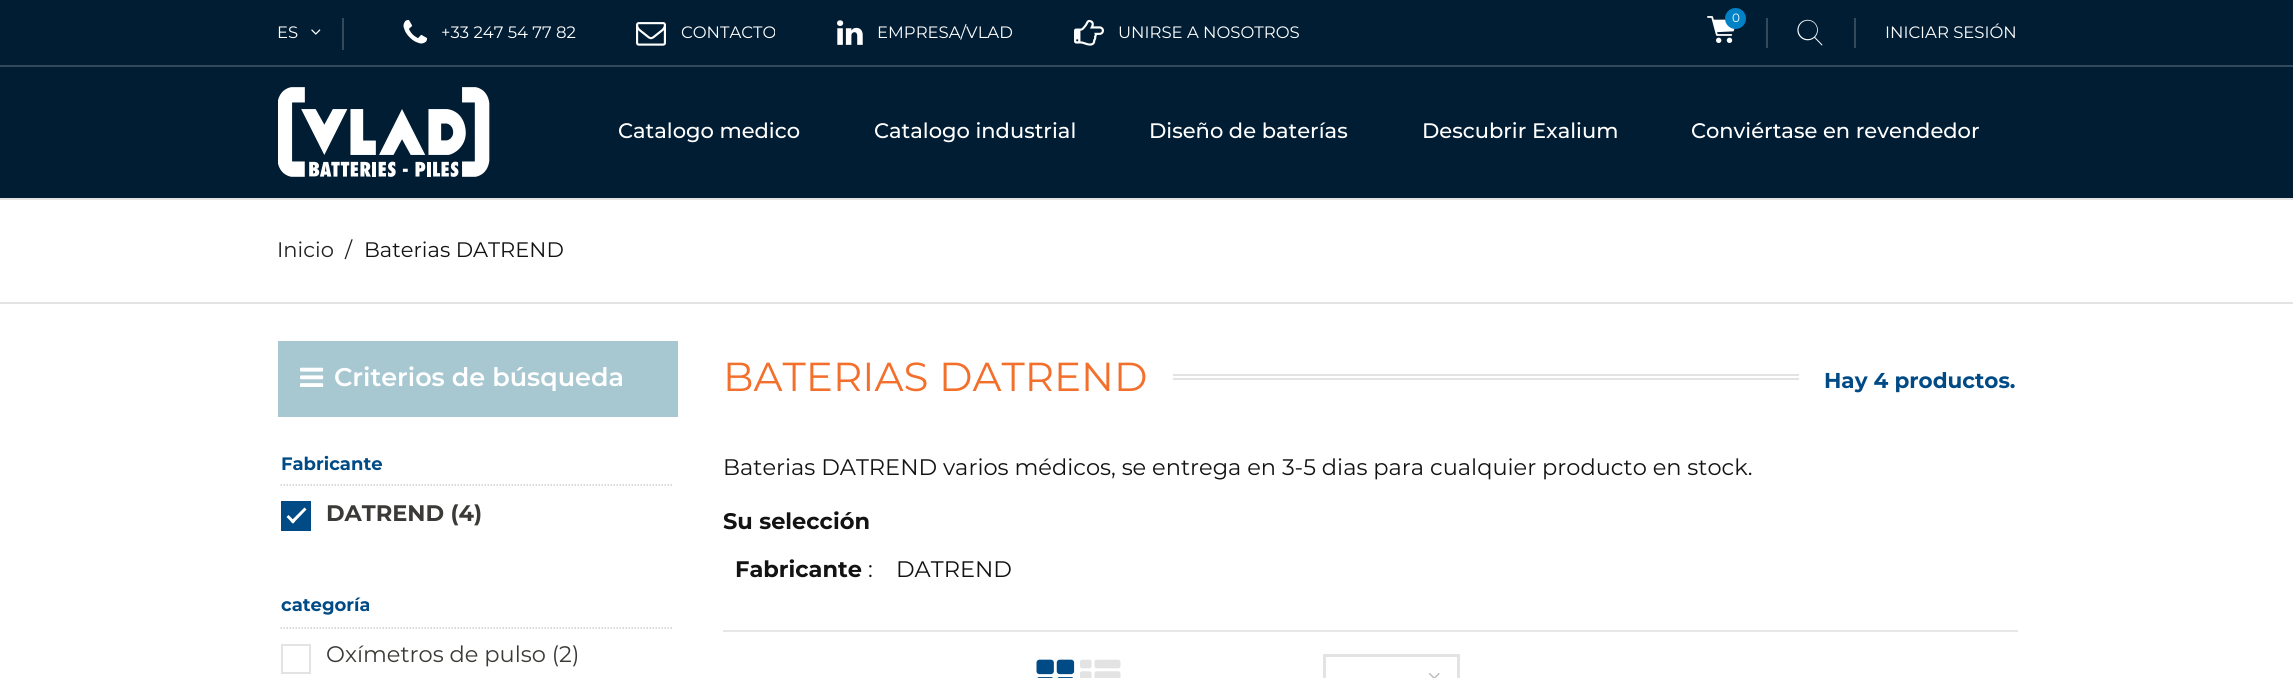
#include <cairo.h>
#include <math.h>
#include <stddef.h>


static void picture(cairo_t *cr, const char *path, double x, double y, double w, double h) {
    cairo_surface_t *image = cairo_image_surface_create_from_png(path);
    cairo_save(cr);
    cairo_set_source_surface(cr, image, x, y);
    cairo_rectangle(cr, x, y, w, h);
    cairo_fill(cr);
    cairo_restore(cr);
    cairo_surface_destroy(image);
}

int main(void) {
    cairo_surface_t *surface = cairo_image_surface_create(CAIRO_FORMAT_RGB24, 2293, 678);
    cairo_t *cr = cairo_create(surface);
    cairo_font_options_t *options = cairo_font_options_create();
    cairo_font_options_set_hint_metrics(options, CAIRO_HINT_METRICS_OFF);
    cairo_font_options_set_hint_style(options, CAIRO_HINT_STYLE_NONE);
    cairo_set_font_options(cr, options);
    cairo_set_miter_limit(cr, 4);
    cairo_set_source_rgb(cr, 1, 1, 1);
    cairo_paint(cr);
    cairo_set_source_rgb(cr, 0, 0.114, 0.204);
    cairo_rectangle(cr, 0, 0, 2293, 198);
    cairo_fill(cr);
    cairo_set_source_rgb(cr, 0.2, 0.29, 0.365);
    cairo_rectangle(cr, 0, 65, 2293, 2);
    cairo_fill(cr);
    cairo_select_font_face(cr, "Montserrat", CAIRO_FONT_SLANT_NORMAL, CAIRO_FONT_WEIGHT_NORMAL);
    cairo_set_font_size(cr, 16.5);
    cairo_set_source_rgb(cr, 1, 1, 1);
    cairo_move_to(cr, 277, 38);
    cairo_show_text(cr, "ES");
    picture(cr, "img1.png", 311, 29, 10, 6);
    cairo_set_source_rgb(cr, 0.2, 0.29, 0.365);
    cairo_rectangle(cr, 342, 18, 2, 32);
    cairo_fill(cr);
    picture(cr, "img2.png", 403, 19, 25, 25);
    cairo_set_source_rgb(cr, 1, 1, 1);
    cairo_move_to(cr, 441, 38);
    cairo_show_text(cr, "+33 247 54 77 82");
    picture(cr, "img3.png", 636, 22, 30, 24);
    cairo_move_to(cr, 681, 38);
    cairo_show_text(cr, "CONTACTO");
    picture(cr, "img4.png", 837, 20, 26, 25);
    cairo_move_to(cr, 877, 38);
    cairo_show_text(cr, "EMPRESA/VLAD");
    picture(cr, "img5.png", 1074, 19, 30, 27);
    cairo_move_to(cr, 1118, 38);
    cairo_show_text(cr, "UNIRSE A NOSOTROS");
    picture(cr, "img6.png", 1707, 16, 28, 27);
    cairo_set_source_rgb(cr, 0.004, 0.51, 0.776);
    cairo_arc(cr, 1735.5, 18.5, 10.5, 0, 2 * M_PI);
    cairo_fill(cr);
    cairo_set_font_size(cr, 12);
    cairo_set_source_rgb(cr, 1, 1, 1);
    cairo_move_to(cr, 1732, 22);
    cairo_show_text(cr, "0");
    cairo_set_source_rgb(cr, 0.2, 0.29, 0.365);
    cairo_rectangle(cr, 1854, 18, 2, 30);
    cairo_fill(cr);
    cairo_rectangle(cr, 1766, 18, 2, 30);
    cairo_fill(cr);
    picture(cr, "img7.png", 1797, 19, 26, 27);
    cairo_set_font_size(cr, 16.5);
    cairo_set_source_rgb(cr, 1, 1, 1);
    cairo_move_to(cr, 1885, 38);
    cairo_show_text(cr, "INICIAR SESIÓN");
    picture(cr, "img8.png", 278, 87, 212, 90);
    cairo_select_font_face(cr, "Montserrat Medium", CAIRO_FONT_SLANT_NORMAL, CAIRO_FONT_WEIGHT_NORMAL);
    cairo_set_font_size(cr, 21);
    cairo_move_to(cr, 618, 138);
    cairo_show_text(cr, "Catalogo medico");
    cairo_move_to(cr, 874, 138);
    cairo_show_text(cr, "Catalogo industrial");
    cairo_move_to(cr, 1149, 138);
    cairo_show_text(cr, "Diseño de baterías");
    cairo_move_to(cr, 1422, 138);
    cairo_show_text(cr, "Descubrir Exalium");
    cairo_move_to(cr, 1691, 138);
    cairo_show_text(cr, "Conviértase en revendedor");
    cairo_set_source_rgb(cr, 0.89, 0.89, 0.89);
    cairo_rectangle(cr, 0, 198, 2293, 2);
    cairo_fill(cr);
    cairo_rectangle(cr, 0, 302, 2293, 2);
    cairo_fill(cr);
    cairo_select_font_face(cr, "Montserrat", CAIRO_FONT_SLANT_NORMAL, CAIRO_FONT_WEIGHT_NORMAL);
    cairo_set_source_rgb(cr, 0.133, 0.133, 0.133);
    cairo_move_to(cr, 277, 257);
    cairo_show_text(cr, "Inicio");
    cairo_move_to(cr, 345, 257);
    cairo_show_text(cr, "/");
    cairo_set_source_rgb(cr, 0.075, 0.075, 0.075);
    cairo_move_to(cr, 364, 257);
    cairo_show_text(cr, "Baterias DATREND");
    cairo_set_source_rgb(cr, 0.659, 0.784, 0.82);
    cairo_rectangle(cr, 278, 341, 400, 76);
    cairo_fill(cr);
    picture(cr, "img9.png", 300, 367, 24, 20);
    cairo_select_font_face(cr, "Montserrat SemiBold", CAIRO_FONT_SLANT_NORMAL, CAIRO_FONT_WEIGHT_NORMAL);
    cairo_set_font_size(cr, 25.5);
    cairo_set_source_rgb(cr, 1, 1, 1);
    cairo_move_to(cr, 334, 386);
    cairo_show_text(cr, "Criterios de búsqueda");
    cairo_new_path(cr);
    cairo_move_to(cr, 280.5, 485);
    cairo_line_to(cr, 673.5, 485);
    cairo_set_source_rgb(cr, 0.8, 0.8, 0.8);
    cairo_set_line_width(cr, 1.5);
    cairo_set_dash(cr, (double[]){1.5, 1.5}, 2, 0);
    cairo_stroke(cr);
    cairo_select_font_face(cr, "Montserrat", CAIRO_FONT_SLANT_NORMAL, CAIRO_FONT_WEIGHT_BOLD);
    cairo_set_font_size(cr, 18);
    cairo_set_source_rgb(cr, 0, 0.29, 0.522);
    cairo_move_to(cr, 281, 470);
    cairo_show_text(cr, "Fabricante");
    cairo_rectangle(cr, 281, 501, 30, 30);
    cairo_fill(cr);
    cairo_set_source_rgb(cr, 1, 1, 1);
    cairo_new_path(cr);
    cairo_move_to(cr, 290.5, 521.5);
    cairo_line_to(cr, 304.5, 507.5);
    cairo_line_to(cr, 306.5, 509.5);
    cairo_line_to(cr, 293, 523.5);
    cairo_close_path(cr);
    cairo_fill(cr);
    cairo_new_path(cr);
    cairo_move_to(cr, 286.5, 517);
    cairo_line_to(cr, 288.5, 515);
    cairo_line_to(cr, 295, 521.5);
    cairo_line_to(cr, 293, 523.5);
    cairo_close_path(cr);
    cairo_fill(cr);
    cairo_set_font_size(cr, 22.5);
    cairo_set_source_rgb(cr, 0.231, 0.227, 0.212);
    cairo_move_to(cr, 326, 521);
    cairo_show_text(cr, "DATREND (4)");
    cairo_new_path(cr);
    cairo_move_to(cr, 280.5, 628);
    cairo_line_to(cr, 673.5, 628);
    cairo_set_source_rgb(cr, 0.8, 0.8, 0.8);
    cairo_stroke(cr);
    cairo_set_font_size(cr, 18);
    cairo_set_source_rgb(cr, 0, 0.29, 0.522);
    cairo_move_to(cr, 281, 611);
    cairo_show_text(cr, "categoría");
    cairo_rectangle(cr, 282, 645, 28, 28);
    cairo_set_source_rgb(cr, 0.89, 0.89, 0.89);
    cairo_set_line_width(cr, 2);
    cairo_set_dash(cr, NULL, 0, 0);
    cairo_stroke(cr);
    cairo_select_font_face(cr, "Montserrat", CAIRO_FONT_SLANT_NORMAL, CAIRO_FONT_WEIGHT_NORMAL);
    cairo_set_font_size(cr, 22.5);
    cairo_set_source_rgb(cr, 0.231, 0.227, 0.212);
    cairo_move_to(cr, 326, 662);
    cairo_show_text(cr, "Oxímetros de pulso (2)");
    cairo_set_font_size(cr, 40.5);
    cairo_set_source_rgb(cr, 0.953, 0.439, 0.173);
    cairo_move_to(cr, 723, 391);
    cairo_show_text(cr, "BATERIAS DATREND");
    cairo_set_source_rgb(cr, 0.89, 0.89, 0.89);
    cairo_rectangle(cr, 1173, 374, 626, 2);
    cairo_fill(cr);
    cairo_rectangle(cr, 1173, 378, 626, 2);
    cairo_fill(cr);
    cairo_select_font_face(cr, "Montserrat", CAIRO_FONT_SLANT_NORMAL, CAIRO_FONT_WEIGHT_BOLD);
    cairo_set_font_size(cr, 21.5);
    cairo_set_source_rgb(cr, 0, 0.29, 0.522);
    cairo_move_to(cr, 1824, 388);
    cairo_show_text(cr, "Hay 4 productos.");
    cairo_select_font_face(cr, "Montserrat", CAIRO_FONT_SLANT_NORMAL, CAIRO_FONT_WEIGHT_NORMAL);
    cairo_set_font_size(cr, 22.5);
    cairo_set_source_rgb(cr, 0.075, 0.075, 0.075);
    cairo_move_to(cr, 723, 475);
    cairo_show_text(cr, "Baterias DATREND varios médicos, se entrega en 3-5 dias para cualquier producto en stock.");
    cairo_select_font_face(cr, "Montserrat", CAIRO_FONT_SLANT_NORMAL, CAIRO_FONT_WEIGHT_BOLD);
    cairo_move_to(cr, 723, 529);
    cairo_show_text(cr, "Su selección");
    cairo_move_to(cr, 735, 577);
    cairo_show_text(cr, "Fabricante");
    cairo_select_font_face(cr, "Montserrat", CAIRO_FONT_SLANT_NORMAL, CAIRO_FONT_WEIGHT_NORMAL);
    cairo_move_to(cr, 868, 577);
    cairo_show_text(cr, ":");
    cairo_move_to(cr, 896, 577);
    cairo_show_text(cr, "DATREND");
    cairo_set_source_rgb(cr, 0.906, 0.906, 0.906);
    cairo_rectangle(cr, 723, 630, 1295, 2);
    cairo_fill(cr);
    picture(cr, "img10.png", 1036, 659, 39, 19);
    picture(cr, "img11.png", 1080, 659, 41, 19);
    cairo_rectangle(cr, 1324.5, 655.5, 134, 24);
    cairo_set_source_rgb(cr, 0.89, 0.89, 0.89);
    cairo_set_line_width(cr, 3);
    cairo_stroke(cr);
    picture(cr, "img12.png", 1429, 673, 11, 5);
    cairo_surface_write_to_png(surface, "page.png");
    cairo_font_options_destroy(options);
    cairo_destroy(cr);
    cairo_surface_destroy(surface);
    return 0;
}
